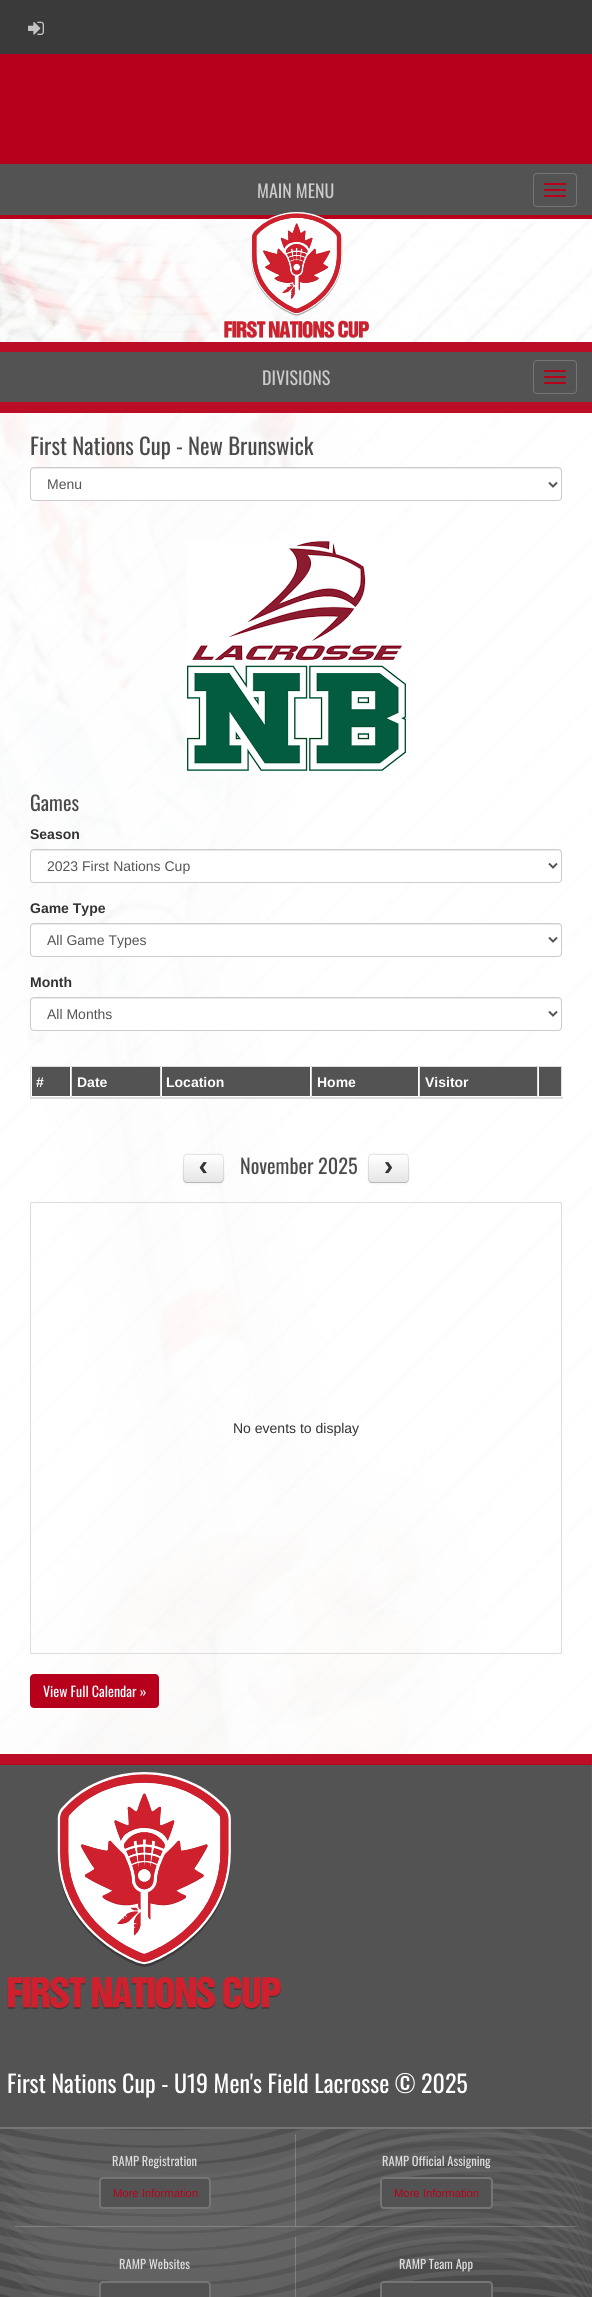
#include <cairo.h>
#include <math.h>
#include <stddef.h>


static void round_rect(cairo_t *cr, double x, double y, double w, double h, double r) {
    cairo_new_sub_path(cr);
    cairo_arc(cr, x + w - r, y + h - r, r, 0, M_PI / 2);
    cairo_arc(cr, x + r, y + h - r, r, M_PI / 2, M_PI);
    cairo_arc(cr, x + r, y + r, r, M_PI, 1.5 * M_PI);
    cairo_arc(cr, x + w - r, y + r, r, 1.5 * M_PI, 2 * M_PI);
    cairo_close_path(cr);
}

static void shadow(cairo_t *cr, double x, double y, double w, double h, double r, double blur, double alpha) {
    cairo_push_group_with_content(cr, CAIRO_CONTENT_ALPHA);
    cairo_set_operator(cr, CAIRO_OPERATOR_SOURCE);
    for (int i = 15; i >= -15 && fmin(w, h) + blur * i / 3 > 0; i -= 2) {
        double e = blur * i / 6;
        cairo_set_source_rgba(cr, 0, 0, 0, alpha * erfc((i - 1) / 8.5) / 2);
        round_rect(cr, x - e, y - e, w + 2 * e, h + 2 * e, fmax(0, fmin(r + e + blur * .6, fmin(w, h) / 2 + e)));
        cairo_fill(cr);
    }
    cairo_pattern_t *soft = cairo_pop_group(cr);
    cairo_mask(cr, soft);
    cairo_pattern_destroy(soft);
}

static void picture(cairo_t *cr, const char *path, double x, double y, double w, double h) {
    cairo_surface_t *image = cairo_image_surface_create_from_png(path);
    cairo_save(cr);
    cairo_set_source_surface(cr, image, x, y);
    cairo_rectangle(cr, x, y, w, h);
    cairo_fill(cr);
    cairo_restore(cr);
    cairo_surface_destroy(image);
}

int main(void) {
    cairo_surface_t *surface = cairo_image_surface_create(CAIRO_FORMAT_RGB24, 592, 2297);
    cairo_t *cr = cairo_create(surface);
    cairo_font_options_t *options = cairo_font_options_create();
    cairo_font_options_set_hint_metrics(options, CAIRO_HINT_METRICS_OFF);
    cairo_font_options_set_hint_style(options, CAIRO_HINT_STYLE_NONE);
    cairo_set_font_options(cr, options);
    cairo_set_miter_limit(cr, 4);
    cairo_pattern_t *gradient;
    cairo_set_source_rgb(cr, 1, 1, 1);
    cairo_paint(cr);
    cairo_set_source_rgb(cr, 0.227, 0.227, 0.227);
    cairo_rectangle(cr, 0, 0, 592, 54);
    cairo_fill(cr);
    picture(cr, "img1.png", 28, 21, 16, 14);
    cairo_set_source_rgb(cr, 0.718, 0, 0.106);
    cairo_rectangle(cr, 0, 54, 592, 110);
    cairo_fill(cr);
    cairo_set_source_rgb(cr, 0.325, 0.325, 0.325);
    cairo_rectangle(cr, 0, 164, 592, 51);
    cairo_fill(cr);
    cairo_set_source_rgb(cr, 0.718, 0, 0.106);
    cairo_rectangle(cr, 0, 215, 592, 4);
    cairo_fill(cr);
    cairo_select_font_face(cr, "Oswald", CAIRO_FONT_SLANT_NORMAL, CAIRO_FONT_WEIGHT_NORMAL);
    cairo_set_font_size(cr, 18);
    cairo_set_source_rgb(cr, 0.796, 0.796, 0.796);
    cairo_move_to(cr, 257, 198);
    cairo_show_text(cr, "MAIN MENU");
    round_rect(cr, 533.5, 173.5, 43, 33, 3.5);
    cairo_set_source_rgb(cr, 0.459, 0.459, 0.459);
    cairo_set_line_width(cr, 1);
    cairo_stroke(cr);
    cairo_set_source_rgb(cr, 0.718, 0, 0.106);
    round_rect(cr, 544, 183, 22, 2, 1);
    cairo_fill(cr);
    round_rect(cr, 544, 189, 22, 2, 1);
    cairo_fill(cr);
    round_rect(cr, 544, 195, 22, 2, 1);
    cairo_fill(cr);
    picture(cr, "img3.png", 0, 219, 592, 1535);
    picture(cr, "img4.png", 0, 219, 591, 123);
    picture(cr, "img2.png", 224, 212, 145, 127);
    cairo_set_source_rgb(cr, 0.733, 0.051, 0.149);
    cairo_rectangle(cr, 0, 342, 592, 10);
    cairo_fill(cr);
    cairo_set_source_rgb(cr, 0.325, 0.325, 0.325);
    cairo_rectangle(cr, 0, 352, 592, 50);
    cairo_fill(cr);
    cairo_set_source_rgb(cr, 0.796, 0.796, 0.796);
    cairo_move_to(cr, 262, 385);
    cairo_show_text(cr, "DIVISIONS");
    round_rect(cr, 533.5, 360.5, 43, 33, 3.5);
    cairo_set_source_rgb(cr, 0.459, 0.459, 0.459);
    cairo_stroke(cr);
    cairo_set_source_rgb(cr, 0.718, 0, 0.106);
    round_rect(cr, 544, 370, 22, 2, 1);
    cairo_fill(cr);
    round_rect(cr, 544, 376, 22, 2, 1);
    cairo_fill(cr);
    round_rect(cr, 544, 382, 22, 2, 1);
    cairo_fill(cr);
    cairo_set_source_rgb(cr, 0.733, 0.051, 0.149);
    cairo_rectangle(cr, 0, 402, 592, 11);
    cairo_fill(cr);
    cairo_set_source_rgba(cr, 1, 1, 1, 0.8);
    cairo_rectangle(cr, 0, 413, 592, 1341);
    cairo_fill(cr);
    cairo_set_font_size(cr, 22.75);
    cairo_set_source_rgb(cr, 0.298, 0.294, 0.294);
    cairo_move_to(cr, 30, 455);
    cairo_show_text(cr, "First Nations Cup");
    cairo_move_to(cr, 176, 455);
    cairo_show_text(cr, "-");
    cairo_move_to(cr, 188, 455);
    cairo_show_text(cr, "New Brunswick");
    cairo_set_source_rgb(cr, 1, 1, 1);
    round_rect(cr, 30, 467, 532, 34, 4);
    cairo_fill(cr);
    cairo_set_source_rgb(cr, 0.925, 0.925, 0.925);
    cairo_new_path(cr);
    cairo_move_to(cr, 34, 469);
    cairo_line_to(cr, 558, 469);
    cairo_curve_to(cr, 560, 469, 561, 470, 561, 472);
    cairo_line_to(cr, 561, 471);
    cairo_curve_to(cr, 561, 469, 560, 468, 558, 468);
    cairo_line_to(cr, 34, 468);
    cairo_curve_to(cr, 32, 468, 31, 469, 31, 471);
    cairo_line_to(cr, 31, 472);
    cairo_curve_to(cr, 31, 470, 32, 469, 34, 469);
    cairo_close_path(cr);
    cairo_fill(cr);
    round_rect(cr, 30.5, 467.5, 531, 33, 3.5);
    cairo_set_source_rgb(cr, 0.8, 0.8, 0.8);
    cairo_stroke(cr);
    cairo_new_path(cr);
    cairo_move_to(cr, 549, 482.5);
    cairo_line_to(cr, 553, 486.5);
    cairo_line_to(cr, 557, 482.5);
    cairo_set_source_rgb(cr, 0.333, 0.333, 0.333);
    cairo_set_line_width(cr, 2);
    cairo_stroke(cr);
    cairo_select_font_face(cr, "Liberation Sans", CAIRO_FONT_SLANT_NORMAL, CAIRO_FONT_WEIGHT_NORMAL);
    cairo_set_font_size(cr, 14);
    cairo_move_to(cr, 47, 489);
    cairo_show_text(cr, "Menu");
    picture(cr, "img5.png", 187, 541, 219, 230);
    cairo_select_font_face(cr, "Oswald", CAIRO_FONT_SLANT_NORMAL, CAIRO_FONT_WEIGHT_NORMAL);
    cairo_set_font_size(cr, 20.25);
    cairo_set_source_rgb(cr, 0.298, 0.294, 0.294);
    cairo_move_to(cr, 30, 811);
    cairo_show_text(cr, "Games");
    cairo_select_font_face(cr, "Liberation Sans", CAIRO_FONT_SLANT_NORMAL, CAIRO_FONT_WEIGHT_BOLD);
    cairo_set_font_size(cr, 14);
    cairo_set_source_rgb(cr, 0.2, 0.2, 0.2);
    cairo_move_to(cr, 30, 839);
    cairo_show_text(cr, "Season");
    cairo_set_source_rgb(cr, 1, 1, 1);
    round_rect(cr, 30, 849, 532, 34, 4);
    cairo_fill(cr);
    cairo_set_source_rgb(cr, 0.925, 0.925, 0.925);
    cairo_new_path(cr);
    cairo_move_to(cr, 34, 851);
    cairo_line_to(cr, 558, 851);
    cairo_curve_to(cr, 560, 851, 561, 852, 561, 854);
    cairo_line_to(cr, 561, 853);
    cairo_curve_to(cr, 561, 851, 560, 850, 558, 850);
    cairo_line_to(cr, 34, 850);
    cairo_curve_to(cr, 32, 850, 31, 851, 31, 853);
    cairo_line_to(cr, 31, 854);
    cairo_curve_to(cr, 31, 852, 32, 851, 34, 851);
    cairo_close_path(cr);
    cairo_fill(cr);
    round_rect(cr, 30.5, 849.5, 531, 33, 3.5);
    cairo_set_source_rgb(cr, 0.8, 0.8, 0.8);
    cairo_set_line_width(cr, 1);
    cairo_stroke(cr);
    cairo_new_path(cr);
    cairo_move_to(cr, 549, 863.5);
    cairo_line_to(cr, 553, 867.5);
    cairo_line_to(cr, 557, 863.5);
    cairo_set_source_rgb(cr, 0.333, 0.333, 0.333);
    cairo_set_line_width(cr, 2);
    cairo_stroke(cr);
    cairo_select_font_face(cr, "Liberation Sans", CAIRO_FONT_SLANT_NORMAL, CAIRO_FONT_WEIGHT_NORMAL);
    cairo_move_to(cr, 47, 871);
    cairo_show_text(cr, "2023 First Nations Cup");
    cairo_select_font_face(cr, "Liberation Sans", CAIRO_FONT_SLANT_NORMAL, CAIRO_FONT_WEIGHT_BOLD);
    cairo_set_source_rgb(cr, 0.2, 0.2, 0.2);
    cairo_move_to(cr, 30, 913);
    cairo_show_text(cr, "Game Type");
    cairo_set_source_rgb(cr, 1, 1, 1);
    round_rect(cr, 30, 923, 532, 34, 4);
    cairo_fill(cr);
    cairo_set_source_rgb(cr, 0.925, 0.925, 0.925);
    cairo_new_path(cr);
    cairo_move_to(cr, 34, 925);
    cairo_line_to(cr, 558, 925);
    cairo_curve_to(cr, 560, 925, 561, 926, 561, 928);
    cairo_line_to(cr, 561, 927);
    cairo_curve_to(cr, 561, 925, 560, 924, 558, 924);
    cairo_line_to(cr, 34, 924);
    cairo_curve_to(cr, 32, 924, 31, 925, 31, 927);
    cairo_line_to(cr, 31, 928);
    cairo_curve_to(cr, 31, 926, 32, 925, 34, 925);
    cairo_close_path(cr);
    cairo_fill(cr);
    round_rect(cr, 30.5, 923.5, 531, 33, 3.5);
    cairo_set_source_rgb(cr, 0.8, 0.8, 0.8);
    cairo_set_line_width(cr, 1);
    cairo_stroke(cr);
    cairo_new_path(cr);
    cairo_move_to(cr, 549, 937.5);
    cairo_line_to(cr, 553, 941.5);
    cairo_line_to(cr, 557, 937.5);
    cairo_set_source_rgb(cr, 0.333, 0.333, 0.333);
    cairo_set_line_width(cr, 2);
    cairo_stroke(cr);
    cairo_select_font_face(cr, "Liberation Sans", CAIRO_FONT_SLANT_NORMAL, CAIRO_FONT_WEIGHT_NORMAL);
    cairo_move_to(cr, 47, 945);
    cairo_show_text(cr, "All Game Types");
    cairo_select_font_face(cr, "Liberation Sans", CAIRO_FONT_SLANT_NORMAL, CAIRO_FONT_WEIGHT_BOLD);
    cairo_set_source_rgb(cr, 0.2, 0.2, 0.2);
    cairo_move_to(cr, 30, 987);
    cairo_show_text(cr, "Month");
    cairo_set_source_rgb(cr, 1, 1, 1);
    round_rect(cr, 30, 997, 532, 34, 4);
    cairo_fill(cr);
    cairo_set_source_rgb(cr, 0.925, 0.925, 0.925);
    cairo_new_path(cr);
    cairo_move_to(cr, 34, 999);
    cairo_line_to(cr, 558, 999);
    cairo_curve_to(cr, 560, 999, 561, 1000, 561, 1002);
    cairo_line_to(cr, 561, 1001);
    cairo_curve_to(cr, 561, 999, 560, 998, 558, 998);
    cairo_line_to(cr, 34, 998);
    cairo_curve_to(cr, 32, 998, 31, 999, 31, 1001);
    cairo_line_to(cr, 31, 1002);
    cairo_curve_to(cr, 31, 1000, 32, 999, 34, 999);
    cairo_close_path(cr);
    cairo_fill(cr);
    round_rect(cr, 30.5, 997.5, 531, 33, 3.5);
    cairo_set_source_rgb(cr, 0.8, 0.8, 0.8);
    cairo_set_line_width(cr, 1);
    cairo_stroke(cr);
    cairo_new_path(cr);
    cairo_move_to(cr, 549, 1011.5);
    cairo_line_to(cr, 553, 1015.5);
    cairo_line_to(cr, 557, 1011.5);
    cairo_set_source_rgb(cr, 0.333, 0.333, 0.333);
    cairo_set_line_width(cr, 2);
    cairo_stroke(cr);
    cairo_select_font_face(cr, "Liberation Sans", CAIRO_FONT_SLANT_NORMAL, CAIRO_FONT_WEIGHT_NORMAL);
    cairo_move_to(cr, 47, 1019);
    cairo_show_text(cr, "All Months");
    cairo_set_source_rgba(cr, 1, 1, 1, 0.9);
    cairo_rectangle(cr, 41, 1067, 231, 30);
    cairo_fill(cr);
    cairo_set_source_rgb(cr, 0.325, 0.325, 0.325);
    cairo_rectangle(cr, 539, 1067, 22, 29);
    cairo_fill(cr);
    cairo_set_source_rgb(cr, 0.867, 0.867, 0.867);
    cairo_rectangle(cr, 537, 1066, 25, 1);
    cairo_fill(cr);
    cairo_rectangle(cr, 561, 1066, 1, 32);
    cairo_fill(cr);
    cairo_rectangle(cr, 537, 1066, 1, 32);
    cairo_fill(cr);
    cairo_rectangle(cr, 419, 1066, 119, 1);
    cairo_fill(cr);
    cairo_rectangle(cr, 419, 1066, 1, 32);
    cairo_fill(cr);
    cairo_rectangle(cr, 311, 1066, 109, 1);
    cairo_fill(cr);
    cairo_rectangle(cr, 311, 1066, 1, 32);
    cairo_fill(cr);
    cairo_rectangle(cr, 160, 1066, 152, 1);
    cairo_fill(cr);
    cairo_rectangle(cr, 160, 1066, 1, 32);
    cairo_fill(cr);
    cairo_rectangle(cr, 71, 1066, 90, 1);
    cairo_fill(cr);
    cairo_rectangle(cr, 71, 1066, 1, 32);
    cairo_fill(cr);
    cairo_rectangle(cr, 30, 1066, 42, 1);
    cairo_fill(cr);
    cairo_rectangle(cr, 30, 1066, 1, 32);
    cairo_fill(cr);
    cairo_rectangle(cr, 30, 1097, 533, 2);
    cairo_fill(cr);
    cairo_set_source_rgb(cr, 0.325, 0.325, 0.325);
    cairo_rectangle(cr, 32, 1067, 38, 29);
    cairo_fill(cr);
    cairo_select_font_face(cr, "Liberation Sans", CAIRO_FONT_SLANT_NORMAL, CAIRO_FONT_WEIGHT_BOLD);
    cairo_set_source_rgb(cr, 1, 1, 1);
    cairo_move_to(cr, 36, 1087);
    cairo_show_text(cr, "#");
    cairo_set_source_rgb(cr, 0.325, 0.325, 0.325);
    cairo_rectangle(cr, 72, 1067, 88, 29);
    cairo_fill(cr);
    cairo_set_source_rgb(cr, 1, 1, 1);
    cairo_move_to(cr, 77, 1087);
    cairo_show_text(cr, "Date");
    cairo_set_source_rgb(cr, 0.325, 0.325, 0.325);
    cairo_rectangle(cr, 162, 1067, 148, 29);
    cairo_fill(cr);
    cairo_set_source_rgb(cr, 1, 1, 1);
    cairo_move_to(cr, 166, 1087);
    cairo_show_text(cr, "Location");
    cairo_set_source_rgb(cr, 0.325, 0.325, 0.325);
    cairo_rectangle(cr, 312, 1067, 106, 29);
    cairo_fill(cr);
    cairo_set_source_rgb(cr, 1, 1, 1);
    cairo_move_to(cr, 317, 1087);
    cairo_show_text(cr, "Home");
    cairo_set_source_rgb(cr, 0.325, 0.325, 0.325);
    cairo_rectangle(cr, 420, 1067, 117, 29);
    cairo_fill(cr);
    cairo_set_source_rgb(cr, 1, 1, 1);
    cairo_move_to(cr, 425, 1087);
    cairo_show_text(cr, "Visitor");
    cairo_set_source_rgb(cr, 0, 0, 0);
    shadow(cr, 183, 1155, 41, 29, 4, 1, 0.05);
    cairo_set_source_rgb(cr, 0.961, 0.961, 0.961);
    round_rect(cr, 183, 1154, 41, 29, 4);
    cairo_fill(cr);
    cairo_save(cr);
    round_rect(cr, 183, 1154, 41, 29, 4);
    cairo_clip(cr);
    gradient = cairo_pattern_create_linear(204, 1155, 204, 1182);
    cairo_pattern_add_color_stop_rgba(gradient, 0, 1, 1, 1, 1);
    cairo_pattern_add_color_stop_rgba(gradient, 1, 0.902, 0.902, 0.902, 1);
    cairo_set_source(cr, gradient);
    cairo_pattern_destroy(gradient);
    cairo_rectangle(cr, 183, 1155, 41, 27);
    cairo_fill(cr);
    cairo_restore(cr);
    cairo_new_path(cr);
    cairo_move_to(cr, 222.5, 1181.5);
    cairo_curve_to(cr, 222, 1182, 221, 1182.5, 220, 1182.5);
    cairo_line_to(cr, 187, 1182.5);
    cairo_curve_to(cr, 186, 1182.5, 185, 1182, 184.5, 1181.5);
    cairo_set_source_rgb(cr, 0.722, 0.722, 0.722);
    cairo_set_line_width(cr, 1);
    cairo_stroke(cr);
    cairo_new_path(cr);
    cairo_move_to(cr, 184.5, 1181.5);
    cairo_curve_to(cr, 182.5, 1179.5, 183.5, 1171, 183.5, 1168.5);
    cairo_curve_to(cr, 183.5, 1150, 182.5, 1154.5, 203.5, 1154.5);
    cairo_curve_to(cr, 224.5, 1154.5, 223.5, 1150, 223.5, 1168.5);
    cairo_curve_to(cr, 223.5, 1171, 224.5, 1179.5, 222.5, 1181.5);
    cairo_set_source_rgba(cr, 0, 0, 0, 0.1);
    cairo_stroke(cr);
    cairo_select_font_face(cr, "Liberation Mono", CAIRO_FONT_SLANT_NORMAL, CAIRO_FONT_WEIGHT_BOLD);
    cairo_set_font_size(cr, 28);
    cairo_set_source_rgb(cr, 0.2, 0.2, 0.2);
    cairo_move_to(cr, 195, 1175);
    cairo_show_text(cr, "‹");
    cairo_select_font_face(cr, "Oswald", CAIRO_FONT_SLANT_NORMAL, CAIRO_FONT_WEIGHT_NORMAL);
    cairo_set_font_size(cr, 20.25);
    cairo_set_source_rgb(cr, 0.298, 0.294, 0.294);
    cairo_move_to(cr, 240, 1174);
    cairo_show_text(cr, "November 2025");
    cairo_set_source_rgb(cr, 0, 0, 0);
    shadow(cr, 368, 1155, 41, 29, 4, 1, 0.05);
    cairo_set_source_rgb(cr, 0.961, 0.961, 0.961);
    round_rect(cr, 368, 1154, 41, 29, 4);
    cairo_fill(cr);
    cairo_save(cr);
    round_rect(cr, 368, 1154, 41, 29, 4);
    cairo_clip(cr);
    gradient = cairo_pattern_create_linear(389, 1155, 389, 1182);
    cairo_pattern_add_color_stop_rgba(gradient, 0, 1, 1, 1, 1);
    cairo_pattern_add_color_stop_rgba(gradient, 1, 0.902, 0.902, 0.902, 1);
    cairo_set_source(cr, gradient);
    cairo_pattern_destroy(gradient);
    cairo_rectangle(cr, 368, 1155, 41, 27);
    cairo_fill(cr);
    cairo_restore(cr);
    cairo_new_path(cr);
    cairo_move_to(cr, 407.5, 1181.5);
    cairo_curve_to(cr, 407, 1182, 406, 1182.5, 405, 1182.5);
    cairo_line_to(cr, 372, 1182.5);
    cairo_curve_to(cr, 371, 1182.5, 370, 1182, 369.5, 1181.5);
    cairo_set_source_rgb(cr, 0.722, 0.722, 0.722);
    cairo_stroke(cr);
    cairo_new_path(cr);
    cairo_move_to(cr, 369.5, 1181.5);
    cairo_curve_to(cr, 367.5, 1179.5, 368.5, 1171, 368.5, 1168.5);
    cairo_curve_to(cr, 368.5, 1150, 367.5, 1154.5, 388.5, 1154.5);
    cairo_curve_to(cr, 409.5, 1154.5, 408.5, 1150, 408.5, 1168.5);
    cairo_curve_to(cr, 408.5, 1171, 409.5, 1179.5, 407.5, 1181.5);
    cairo_set_source_rgba(cr, 0, 0, 0, 0.1);
    cairo_stroke(cr);
    cairo_select_font_face(cr, "Liberation Mono", CAIRO_FONT_SLANT_NORMAL, CAIRO_FONT_WEIGHT_BOLD);
    cairo_set_font_size(cr, 28);
    cairo_set_source_rgb(cr, 0.2, 0.2, 0.2);
    cairo_move_to(cr, 380, 1175);
    cairo_show_text(cr, "›");
    cairo_rectangle(cr, 30.5, 1202.5, 531, 451);
    cairo_set_source_rgb(cr, 0.867, 0.867, 0.867);
    cairo_stroke(cr);
    cairo_select_font_face(cr, "Liberation Sans", CAIRO_FONT_SLANT_NORMAL, CAIRO_FONT_WEIGHT_NORMAL);
    cairo_set_font_size(cr, 14);
    cairo_set_source_rgb(cr, 0.2, 0.2, 0.2);
    cairo_move_to(cr, 233, 1433);
    cairo_show_text(cr, "No events to display");
    cairo_set_source_rgb(cr, 0.718, 0, 0.106);
    round_rect(cr, 30, 1674, 129, 34, 4);
    cairo_fill(cr);
    cairo_select_font_face(cr, "Oswald", CAIRO_FONT_SLANT_NORMAL, CAIRO_FONT_WEIGHT_NORMAL);
    cairo_set_source_rgb(cr, 1, 1, 1);
    cairo_move_to(cr, 43, 1697);
    cairo_show_text(cr, "View Full Calendar »");
    cairo_set_source_rgb(cr, 0.718, 0, 0.106);
    cairo_rectangle(cr, 0, 1764, 592, 1);
    cairo_fill(cr);
    cairo_set_source_rgb(cr, 0.733, 0.051, 0.149);
    cairo_rectangle(cr, 0, 1754, 592, 10);
    cairo_fill(cr);
    cairo_set_source_rgb(cr, 0.325, 0.325, 0.325);
    cairo_rectangle(cr, 0, 1765, 592, 362);
    cairo_fill(cr);
    cairo_new_path(cr);
    cairo_move_to(cr, 591.5, 1765);
    cairo_line_to(cr, 591.5, 2042);
    cairo_set_source_rgb(cr, 0.392, 0.392, 0.392);
    cairo_set_dash(cr, (double[]){1, 1}, 2, 0);
    cairo_stroke(cr);
    picture(cr, "img6.png", 7, 1772, 274, 238);
    cairo_new_path(cr);
    cairo_move_to(cr, 591.5, 2042);
    cairo_line_to(cr, 591.5, 2113);
    cairo_stroke(cr);
    cairo_set_font_size(cr, 24);
    cairo_set_source_rgb(cr, 1, 1, 1);
    cairo_move_to(cr, 7, 2093);
    cairo_show_text(cr, "First Nations Cup - U19 Men's Field Lacrosse © 2025");
    cairo_new_path(cr);
    cairo_move_to(cr, 591.5, 2113);
    cairo_line_to(cr, 591.5, 2127);
    cairo_set_source_rgb(cr, 0.392, 0.392, 0.392);
    cairo_stroke(cr);
    cairo_set_source_rgb(cr, 0.459, 0.459, 0.459);
    cairo_rectangle(cr, 0, 2127, 592, 2);
    cairo_fill(cr);
    cairo_set_source_rgb(cr, 0.227, 0.227, 0.227);
    cairo_rectangle(cr, 0, 2129, 592, 168);
    cairo_fill(cr);
    picture(cr, "img7.png", 0, 2129, 592, 168);
    cairo_set_source_rgba(cr, 1, 1, 1, 0.2);
    cairo_new_path(cr);
    cairo_move_to(cr, 296, 2134);
    cairo_line_to(cr, 296, 2227);
    cairo_line_to(cr, 295, 2226);
    cairo_line_to(cr, 295, 2134);
    cairo_close_path(cr);
    cairo_fill(cr);
    cairo_new_path(cr);
    cairo_move_to(cr, 296, 2227);
    cairo_line_to(cr, 15, 2227);
    cairo_line_to(cr, 15, 2226);
    cairo_line_to(cr, 295, 2226);
    cairo_close_path(cr);
    cairo_fill(cr);
    cairo_set_font_size(cr, 12.5);
    cairo_set_source_rgb(cr, 0.871, 0.871, 0.871);
    cairo_move_to(cr, 112, 2166);
    cairo_show_text(cr, "RAMP Registration");
    cairo_set_source_rgb(cr, 0.325, 0.325, 0.325);
    round_rect(cr, 99, 2177, 112, 32, 4);
    cairo_fill(cr);
    round_rect(cr, 100, 2178, 110, 30, 3);
    cairo_set_source_rgba(cr, 1, 1, 1, 0.2);
    cairo_set_line_width(cr, 2);
    cairo_set_dash(cr, NULL, 0, 0);
    cairo_stroke(cr);
    cairo_select_font_face(cr, "Liberation Sans", CAIRO_FONT_SLANT_NORMAL, CAIRO_FONT_WEIGHT_NORMAL);
    cairo_set_font_size(cr, 11.25);
    cairo_set_source_rgb(cr, 0.718, 0, 0.106);
    cairo_move_to(cr, 113, 2197);
    cairo_show_text(cr, "More Information");
    cairo_set_source_rgba(cr, 1, 1, 1, 0.2);
    cairo_rectangle(cr, 296, 2226, 281, 1);
    cairo_fill(cr);
    cairo_select_font_face(cr, "Oswald", CAIRO_FONT_SLANT_NORMAL, CAIRO_FONT_WEIGHT_NORMAL);
    cairo_set_font_size(cr, 12.5);
    cairo_set_source_rgb(cr, 0.871, 0.871, 0.871);
    cairo_move_to(cr, 382, 2166);
    cairo_show_text(cr, "RAMP Official Assigning");
    cairo_set_source_rgb(cr, 0.325, 0.325, 0.325);
    round_rect(cr, 380, 2177, 113, 32, 4);
    cairo_fill(cr);
    round_rect(cr, 381, 2178, 111, 30, 3);
    cairo_set_source_rgba(cr, 1, 1, 1, 0.2);
    cairo_stroke(cr);
    cairo_select_font_face(cr, "Liberation Sans", CAIRO_FONT_SLANT_NORMAL, CAIRO_FONT_WEIGHT_NORMAL);
    cairo_set_font_size(cr, 11.25);
    cairo_set_source_rgb(cr, 0.718, 0, 0.106);
    cairo_move_to(cr, 394, 2197);
    cairo_show_text(cr, "More Information");
    cairo_set_source_rgba(cr, 1, 1, 1, 0.2);
    cairo_rectangle(cr, 295, 2237, 1, 60);
    cairo_fill(cr);
    cairo_select_font_face(cr, "Oswald", CAIRO_FONT_SLANT_NORMAL, CAIRO_FONT_WEIGHT_NORMAL);
    cairo_set_font_size(cr, 12.5);
    cairo_set_source_rgb(cr, 0.871, 0.871, 0.871);
    cairo_move_to(cr, 119, 2269);
    cairo_show_text(cr, "RAMP Websites");
    cairo_set_source_rgb(cr, 0.325, 0.325, 0.325);
    round_rect(cr, 99, 2281, 112, 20, 4);
    cairo_fill(cr);
    round_rect(cr, 100, 2282, 110, 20, 3);
    cairo_set_source_rgba(cr, 1, 1, 1, 0.2);
    cairo_stroke(cr);
    cairo_set_source_rgb(cr, 0.871, 0.871, 0.871);
    cairo_move_to(cr, 399, 2269);
    cairo_show_text(cr, "RAMP Team App");
    cairo_set_source_rgb(cr, 0.325, 0.325, 0.325);
    round_rect(cr, 380, 2281, 113, 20, 4);
    cairo_fill(cr);
    round_rect(cr, 381, 2282, 111, 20, 3);
    cairo_set_source_rgba(cr, 1, 1, 1, 0.2);
    cairo_stroke(cr);
    cairo_surface_write_to_png(surface, "page.png");
    cairo_font_options_destroy(options);
    cairo_destroy(cr);
    cairo_surface_destroy(surface);
    return 0;
}
